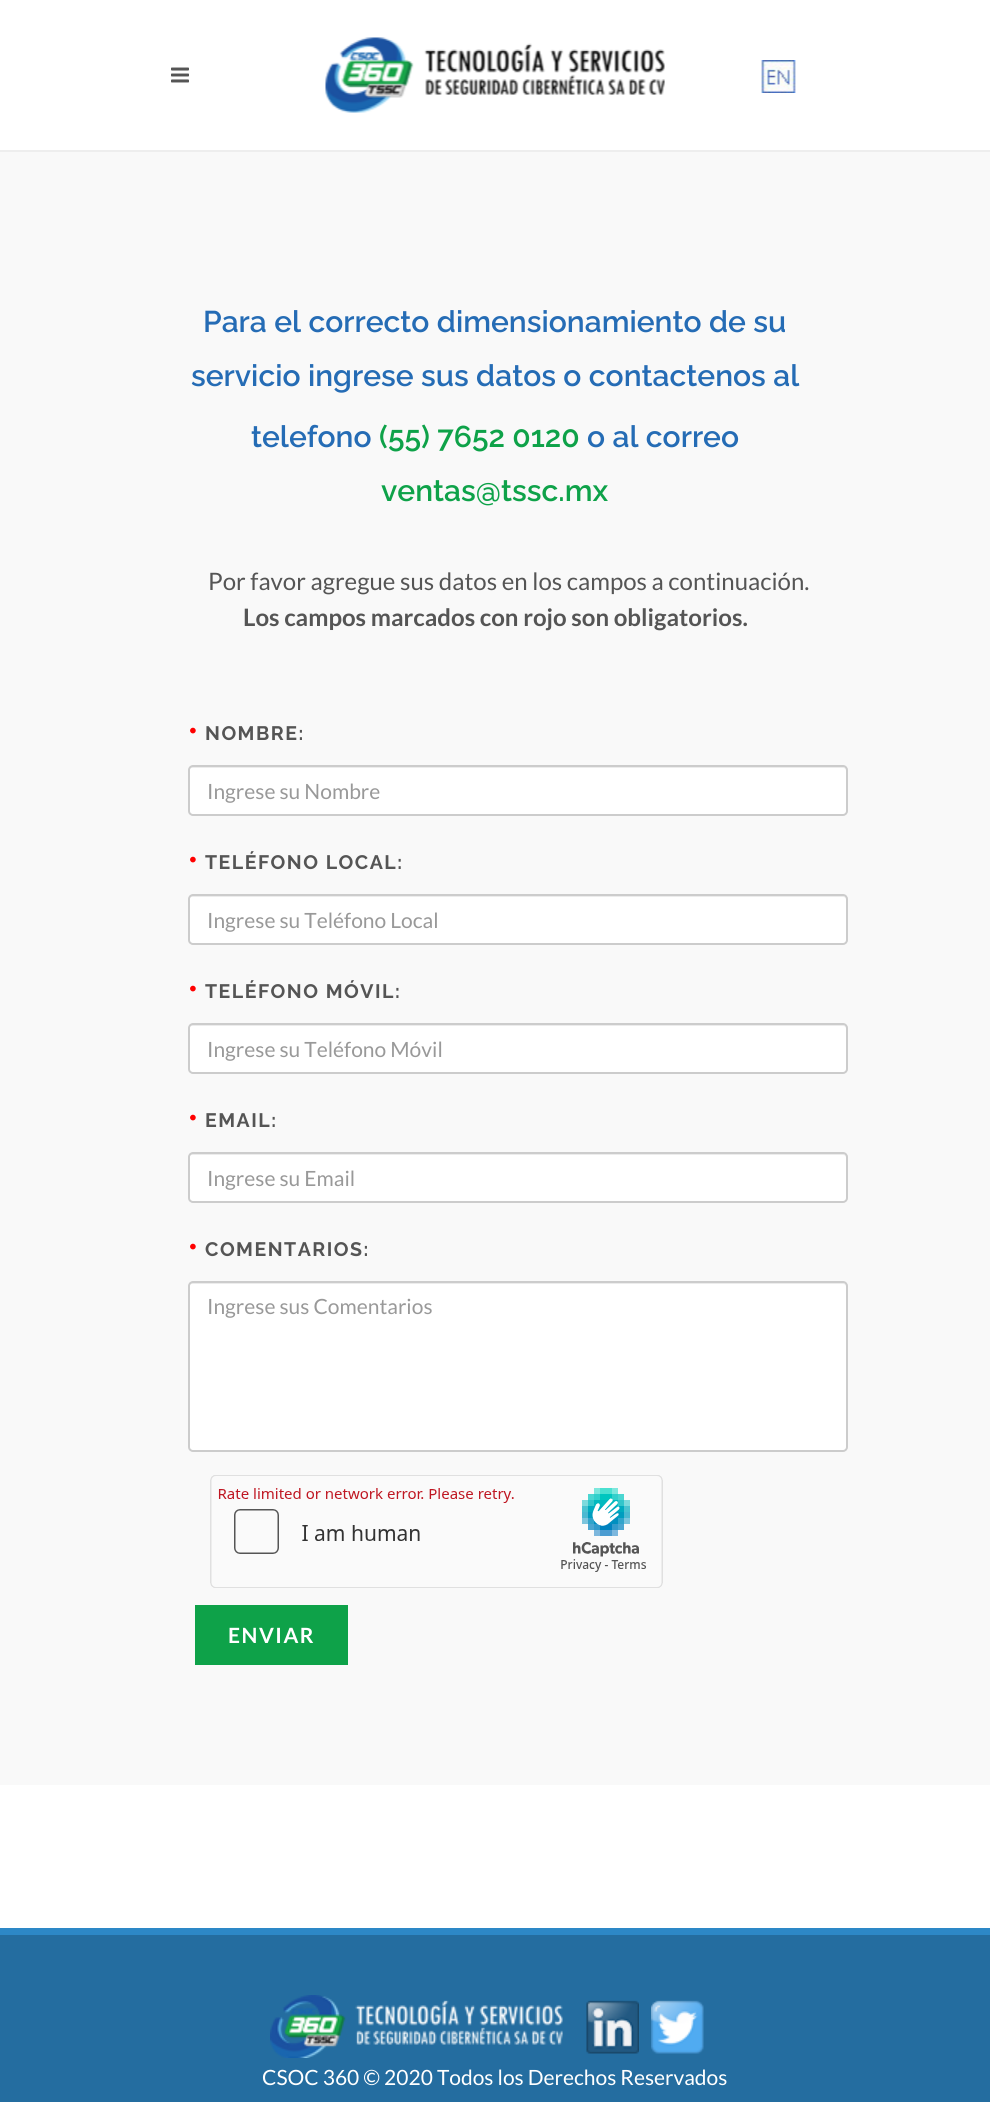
#include <cairo.h>
#include <math.h>
#include <stddef.h>


static void spaced_text(cairo_t *cr, double x, double y, const char *s, double letter, double word) {
    cairo_move_to(cr, x, y);
    while (*s) {
        char ch[5] = {0};
        int n = 0;
        do ch[n++] = *s++; while ((*s & 0xC0) == 0x80);
        cairo_show_text(cr, ch);
        cairo_rel_move_to(cr, letter + word * (*ch == ' '), 0);
    }
}

static void round_rect(cairo_t *cr, double x, double y, double w, double h, double r) {
    cairo_new_sub_path(cr);
    cairo_arc(cr, x + w - r, y + h - r, r, 0, M_PI / 2);
    cairo_arc(cr, x + r, y + h - r, r, M_PI / 2, M_PI);
    cairo_arc(cr, x + r, y + r, r, M_PI, 1.5 * M_PI);
    cairo_arc(cr, x + w - r, y + r, r, 1.5 * M_PI, 2 * M_PI);
    cairo_close_path(cr);
}

static void picture(cairo_t *cr, const char *path, double x, double y, double w, double h) {
    cairo_surface_t *image = cairo_image_surface_create_from_png(path);
    cairo_save(cr);
    cairo_set_source_surface(cr, image, x, y);
    cairo_rectangle(cr, x, y, w, h);
    cairo_fill(cr);
    cairo_restore(cr);
    cairo_surface_destroy(image);
}

int main(void) {
    cairo_surface_t *surface = cairo_image_surface_create(CAIRO_FORMAT_RGB24, 990, 2102);
    cairo_t *cr = cairo_create(surface);
    cairo_font_options_t *options = cairo_font_options_create();
    cairo_font_options_set_hint_metrics(options, CAIRO_HINT_METRICS_OFF);
    cairo_font_options_set_hint_style(options, CAIRO_HINT_STYLE_NONE);
    cairo_set_font_options(cr, options);
    cairo_set_miter_limit(cr, 4);
    cairo_set_source_rgb(cr, 1, 1, 1);
    cairo_paint(cr);
    cairo_set_source_rgb(cr, 0.933, 0.933, 0.933);
    cairo_rectangle(cr, 0, 150, 990, 2);
    cairo_fill(cr);
    picture(cr, "img1.png", 171, 67, 18, 16);
    picture(cr, "img2.png", 325, 37, 340, 76);
    picture(cr, "img3.png", 761, 60, 35, 33);
    cairo_set_source_rgb(cr, 0.976, 0.976, 0.976);
    cairo_rectangle(cr, 0, 152, 990, 1633);
    cairo_fill(cr);
    cairo_select_font_face(cr, "Raleway SemiBold", CAIRO_FONT_SLANT_NORMAL, CAIRO_FONT_WEIGHT_NORMAL);
    cairo_set_font_size(cr, 30);
    cairo_set_source_rgb(cr, 0.145, 0.424, 0.71);
    cairo_move_to(cr, 203, 332);
    cairo_show_text(cr, "Para el correcto dimensionamiento de su");
    cairo_move_to(cr, 191, 386);
    cairo_show_text(cr, "servicio ingrese sus datos o contactenos al");
    cairo_move_to(cr, 251, 447);
    cairo_show_text(cr, "telefono");
    cairo_set_source_rgb(cr, 0.055, 0.635, 0.286);
    cairo_move_to(cr, 379, 447);
    cairo_show_text(cr, "(55) 7652 0120");
    cairo_set_source_rgb(cr, 0.145, 0.424, 0.71);
    cairo_move_to(cr, 587, 447);
    cairo_show_text(cr, "o al correo");
    cairo_set_source_rgb(cr, 0.055, 0.635, 0.286);
    cairo_move_to(cr, 381, 501);
    cairo_show_text(cr, "ventas@tssc.mx");
    cairo_select_font_face(cr, "Lato", CAIRO_FONT_SLANT_NORMAL, CAIRO_FONT_WEIGHT_NORMAL);
    cairo_set_font_size(cr, 24);
    cairo_set_source_rgb(cr, 0.333, 0.333, 0.333);
    cairo_move_to(cr, 208, 590);
    cairo_show_text(cr, "Por favor agregue sus datos en los campos a continuación.");
    cairo_select_font_face(cr, "Lato", CAIRO_FONT_SLANT_NORMAL, CAIRO_FONT_WEIGHT_BOLD);
    cairo_move_to(cr, 243, 626);
    cairo_show_text(cr, "Los campos marcados con rojo son obligatorios.");
    cairo_select_font_face(cr, "Raleway", CAIRO_FONT_SLANT_NORMAL, CAIRO_FONT_WEIGHT_BOLD);
    cairo_set_font_size(cr, 27);
    cairo_set_source_rgb(cr, 1, 0, 0);
    spaced_text(cr, 188, 740, "•", 1.5, 0);
    cairo_set_font_size(cr, 19.5);
    cairo_set_source_rgb(cr, 0.333, 0.333, 0.333);
    spaced_text(cr, 205, 740, "NOMBRE:", 1.5, 0);
    cairo_set_source_rgb(cr, 1, 1, 1);
    round_rect(cr, 188, 765, 660, 51, 5);
    cairo_fill(cr);
    cairo_set_source_rgb(cr, 0.925, 0.925, 0.925);
    cairo_new_path(cr);
    cairo_move_to(cr, 192, 768);
    cairo_line_to(cr, 843, 768);
    cairo_curve_to(cr, 845, 768, 846, 769, 846, 771);
    cairo_line_to(cr, 846, 770);
    cairo_curve_to(cr, 846, 768, 845, 767, 843, 767);
    cairo_line_to(cr, 192, 767);
    cairo_curve_to(cr, 190, 767, 189, 768, 189, 770);
    cairo_line_to(cr, 189, 771);
    cairo_curve_to(cr, 189, 769, 190, 768, 192, 768);
    cairo_close_path(cr);
    cairo_fill(cr);
    round_rect(cr, 189, 766, 658, 49, 4);
    cairo_set_source_rgb(cr, 0.8, 0.8, 0.8);
    cairo_stroke(cr);
    cairo_select_font_face(cr, "Lato", CAIRO_FONT_SLANT_NORMAL, CAIRO_FONT_WEIGHT_NORMAL);
    cairo_set_font_size(cr, 21);
    cairo_set_source_rgb(cr, 0.6, 0.6, 0.6);
    cairo_move_to(cr, 207, 799);
    cairo_show_text(cr, "Ingrese su Nombre");
    cairo_select_font_face(cr, "Raleway", CAIRO_FONT_SLANT_NORMAL, CAIRO_FONT_WEIGHT_BOLD);
    cairo_set_font_size(cr, 27);
    cairo_set_source_rgb(cr, 1, 0, 0);
    spaced_text(cr, 188, 869, "•", 1.5, 0);
    cairo_set_font_size(cr, 19.5);
    cairo_set_source_rgb(cr, 0.333, 0.333, 0.333);
    spaced_text(cr, 205, 869, "TELÉFONO LOCAL:", 1.5, 0);
    cairo_set_source_rgb(cr, 1, 1, 1);
    round_rect(cr, 188, 894, 660, 51, 5);
    cairo_fill(cr);
    cairo_set_source_rgb(cr, 0.925, 0.925, 0.925);
    cairo_new_path(cr);
    cairo_move_to(cr, 192, 897);
    cairo_line_to(cr, 843, 897);
    cairo_curve_to(cr, 845, 897, 846, 898, 846, 900);
    cairo_line_to(cr, 846, 899);
    cairo_curve_to(cr, 846, 897, 845, 896, 843, 896);
    cairo_line_to(cr, 192, 896);
    cairo_curve_to(cr, 190, 896, 189, 897, 189, 899);
    cairo_line_to(cr, 189, 900);
    cairo_curve_to(cr, 189, 898, 190, 897, 192, 897);
    cairo_close_path(cr);
    cairo_fill(cr);
    round_rect(cr, 189, 895, 658, 49, 4);
    cairo_set_source_rgb(cr, 0.8, 0.8, 0.8);
    cairo_stroke(cr);
    cairo_select_font_face(cr, "Lato", CAIRO_FONT_SLANT_NORMAL, CAIRO_FONT_WEIGHT_NORMAL);
    cairo_set_font_size(cr, 21);
    cairo_set_source_rgb(cr, 0.6, 0.6, 0.6);
    cairo_move_to(cr, 207, 928);
    cairo_show_text(cr, "Ingrese su Teléfono Local");
    cairo_select_font_face(cr, "Raleway", CAIRO_FONT_SLANT_NORMAL, CAIRO_FONT_WEIGHT_BOLD);
    cairo_set_font_size(cr, 27);
    cairo_set_source_rgb(cr, 1, 0, 0);
    spaced_text(cr, 188, 998, "•", 1.5, 0);
    cairo_set_font_size(cr, 19.5);
    cairo_set_source_rgb(cr, 0.333, 0.333, 0.333);
    spaced_text(cr, 205, 998, "TELÉFONO MÓVIL:", 1.5, 0);
    cairo_set_source_rgb(cr, 1, 1, 1);
    round_rect(cr, 188, 1023, 660, 51, 5);
    cairo_fill(cr);
    cairo_set_source_rgb(cr, 0.925, 0.925, 0.925);
    cairo_new_path(cr);
    cairo_move_to(cr, 192, 1026);
    cairo_line_to(cr, 843, 1026);
    cairo_curve_to(cr, 845, 1026, 846, 1027, 846, 1029);
    cairo_line_to(cr, 846, 1028);
    cairo_curve_to(cr, 846, 1026, 845, 1025, 843, 1025);
    cairo_line_to(cr, 192, 1025);
    cairo_curve_to(cr, 190, 1025, 189, 1026, 189, 1028);
    cairo_line_to(cr, 189, 1029);
    cairo_curve_to(cr, 189, 1027, 190, 1026, 192, 1026);
    cairo_close_path(cr);
    cairo_fill(cr);
    round_rect(cr, 189, 1024, 658, 49, 4);
    cairo_set_source_rgb(cr, 0.8, 0.8, 0.8);
    cairo_stroke(cr);
    cairo_select_font_face(cr, "Lato", CAIRO_FONT_SLANT_NORMAL, CAIRO_FONT_WEIGHT_NORMAL);
    cairo_set_font_size(cr, 21);
    cairo_set_source_rgb(cr, 0.6, 0.6, 0.6);
    cairo_move_to(cr, 207, 1057);
    cairo_show_text(cr, "Ingrese su Teléfono Móvil");
    cairo_select_font_face(cr, "Raleway", CAIRO_FONT_SLANT_NORMAL, CAIRO_FONT_WEIGHT_BOLD);
    cairo_set_font_size(cr, 27);
    cairo_set_source_rgb(cr, 1, 0, 0);
    spaced_text(cr, 188, 1127, "•", 1.5, 0);
    cairo_set_font_size(cr, 19.5);
    cairo_set_source_rgb(cr, 0.333, 0.333, 0.333);
    spaced_text(cr, 205, 1127, "EMAIL:", 1.5, 0);
    cairo_set_source_rgb(cr, 1, 1, 1);
    round_rect(cr, 188, 1152, 660, 51, 5);
    cairo_fill(cr);
    cairo_set_source_rgb(cr, 0.925, 0.925, 0.925);
    cairo_new_path(cr);
    cairo_move_to(cr, 192, 1155);
    cairo_line_to(cr, 843, 1155);
    cairo_curve_to(cr, 845, 1155, 846, 1156, 846, 1158);
    cairo_line_to(cr, 846, 1157);
    cairo_curve_to(cr, 846, 1155, 845, 1154, 843, 1154);
    cairo_line_to(cr, 192, 1154);
    cairo_curve_to(cr, 190, 1154, 189, 1155, 189, 1157);
    cairo_line_to(cr, 189, 1158);
    cairo_curve_to(cr, 189, 1156, 190, 1155, 192, 1155);
    cairo_close_path(cr);
    cairo_fill(cr);
    round_rect(cr, 189, 1153, 658, 49, 4);
    cairo_set_source_rgb(cr, 0.8, 0.8, 0.8);
    cairo_stroke(cr);
    cairo_select_font_face(cr, "Lato", CAIRO_FONT_SLANT_NORMAL, CAIRO_FONT_WEIGHT_NORMAL);
    cairo_set_font_size(cr, 21);
    cairo_set_source_rgb(cr, 0.6, 0.6, 0.6);
    cairo_move_to(cr, 207, 1186);
    cairo_show_text(cr, "Ingrese su Email");
    cairo_select_font_face(cr, "Raleway", CAIRO_FONT_SLANT_NORMAL, CAIRO_FONT_WEIGHT_BOLD);
    cairo_set_font_size(cr, 27);
    cairo_set_source_rgb(cr, 1, 0, 0);
    spaced_text(cr, 188, 1256, "•", 1.5, 0);
    cairo_set_font_size(cr, 19.5);
    cairo_set_source_rgb(cr, 0.333, 0.333, 0.333);
    spaced_text(cr, 205, 1256, "COMENTARIOS:", 1.5, 0);
    cairo_set_source_rgb(cr, 1, 1, 1);
    round_rect(cr, 188, 1281, 660, 171, 5);
    cairo_fill(cr);
    cairo_set_source_rgb(cr, 0.925, 0.925, 0.925);
    cairo_new_path(cr);
    cairo_move_to(cr, 192, 1284);
    cairo_line_to(cr, 843, 1284);
    cairo_curve_to(cr, 845, 1284, 846, 1285, 846, 1287);
    cairo_line_to(cr, 846, 1286);
    cairo_curve_to(cr, 846, 1284, 845, 1283, 843, 1283);
    cairo_line_to(cr, 192, 1283);
    cairo_curve_to(cr, 190, 1283, 189, 1284, 189, 1286);
    cairo_line_to(cr, 189, 1287);
    cairo_curve_to(cr, 189, 1285, 190, 1284, 192, 1284);
    cairo_close_path(cr);
    cairo_fill(cr);
    round_rect(cr, 189, 1282, 658, 169, 4);
    cairo_set_source_rgb(cr, 0.8, 0.8, 0.8);
    cairo_stroke(cr);
    cairo_select_font_face(cr, "Lato", CAIRO_FONT_SLANT_NORMAL, CAIRO_FONT_WEIGHT_NORMAL);
    cairo_set_font_size(cr, 21);
    cairo_set_source_rgb(cr, 0.6, 0.6, 0.6);
    cairo_move_to(cr, 207, 1314);
    cairo_show_text(cr, "Ingrese sus Comentarios");
    picture(cr, "img4.png", 210, 1475, 453, 113);
    cairo_set_source_rgb(cr, 0.055, 0.635, 0.286);
    cairo_rectangle(cr, 195, 1605, 153, 60);
    cairo_fill(cr);
    cairo_select_font_face(cr, "Lato", CAIRO_FONT_SLANT_NORMAL, CAIRO_FONT_WEIGHT_BOLD);
    cairo_set_source_rgb(cr, 1, 1, 1);
    spaced_text(cr, 228, 1643, "ENVIAR", 1.5, 0);
    cairo_set_source_rgb(cr, 0.176, 0.533, 0.78);
    cairo_rectangle(cr, 0, 1928, 990, 7);
    cairo_fill(cr);
    cairo_set_source_rgb(cr, 0.141, 0.427, 0.627);
    cairo_rectangle(cr, 0, 1935, 990, 167);
    cairo_fill(cr);
    picture(cr, "img5.png", 270, 1995, 293, 63);
    picture(cr, "img6.png", 586, 2000, 53, 54);
    picture(cr, "img7.png", 651, 2000, 53, 54);
    cairo_select_font_face(cr, "Lato", CAIRO_FONT_SLANT_NORMAL, CAIRO_FONT_WEIGHT_NORMAL);
    cairo_set_source_rgb(cr, 1, 1, 1);
    cairo_move_to(cr, 262, 2085);
    cairo_show_text(cr, "CSOC 360 © 2020 Todos los Derechos Reservados");
    cairo_surface_write_to_png(surface, "page.png");
    cairo_font_options_destroy(options);
    cairo_destroy(cr);
    cairo_surface_destroy(surface);
    return 0;
}
